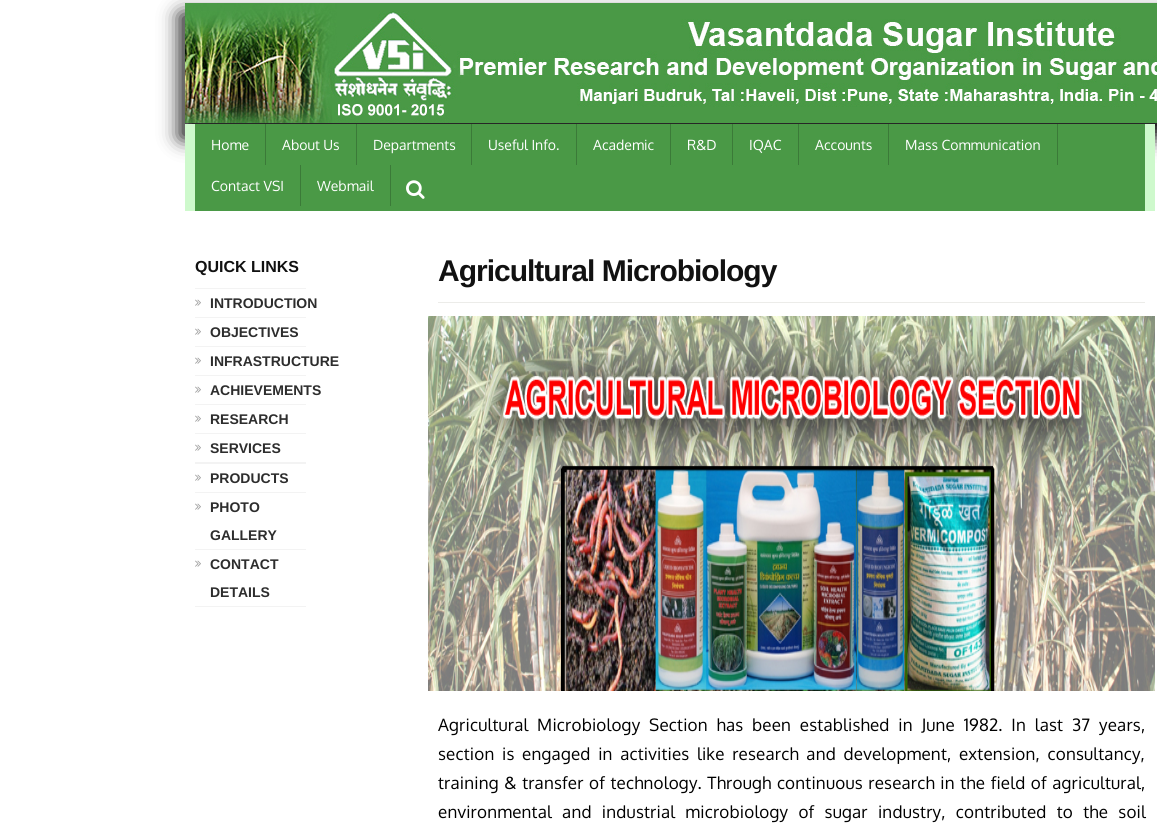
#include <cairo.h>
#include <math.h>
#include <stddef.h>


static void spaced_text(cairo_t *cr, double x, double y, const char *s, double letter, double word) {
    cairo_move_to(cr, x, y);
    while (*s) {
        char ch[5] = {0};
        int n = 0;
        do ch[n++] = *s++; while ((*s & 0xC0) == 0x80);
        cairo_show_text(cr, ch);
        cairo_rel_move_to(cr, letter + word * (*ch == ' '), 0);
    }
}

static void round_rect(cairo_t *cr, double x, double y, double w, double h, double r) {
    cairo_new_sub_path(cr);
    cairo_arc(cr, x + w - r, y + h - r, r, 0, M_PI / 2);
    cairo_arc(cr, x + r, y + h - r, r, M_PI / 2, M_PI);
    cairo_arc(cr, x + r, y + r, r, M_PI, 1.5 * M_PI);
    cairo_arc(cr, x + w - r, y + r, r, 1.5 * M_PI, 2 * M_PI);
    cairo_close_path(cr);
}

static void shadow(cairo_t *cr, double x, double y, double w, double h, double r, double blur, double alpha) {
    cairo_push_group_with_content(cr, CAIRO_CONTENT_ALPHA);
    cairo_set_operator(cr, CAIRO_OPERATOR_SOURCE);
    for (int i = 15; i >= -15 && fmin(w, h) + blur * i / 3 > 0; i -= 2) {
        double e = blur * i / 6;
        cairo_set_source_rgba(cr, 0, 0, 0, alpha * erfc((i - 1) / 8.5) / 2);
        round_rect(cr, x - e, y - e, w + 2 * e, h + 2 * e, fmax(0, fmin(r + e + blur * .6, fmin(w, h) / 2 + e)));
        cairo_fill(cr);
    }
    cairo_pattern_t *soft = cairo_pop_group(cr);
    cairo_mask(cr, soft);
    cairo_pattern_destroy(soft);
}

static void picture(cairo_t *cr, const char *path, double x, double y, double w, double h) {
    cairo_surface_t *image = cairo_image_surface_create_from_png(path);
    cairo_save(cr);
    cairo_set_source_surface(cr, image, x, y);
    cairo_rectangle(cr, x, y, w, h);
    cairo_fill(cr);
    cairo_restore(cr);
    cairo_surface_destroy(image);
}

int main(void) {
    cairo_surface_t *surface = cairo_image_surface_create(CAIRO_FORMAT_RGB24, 1157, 833);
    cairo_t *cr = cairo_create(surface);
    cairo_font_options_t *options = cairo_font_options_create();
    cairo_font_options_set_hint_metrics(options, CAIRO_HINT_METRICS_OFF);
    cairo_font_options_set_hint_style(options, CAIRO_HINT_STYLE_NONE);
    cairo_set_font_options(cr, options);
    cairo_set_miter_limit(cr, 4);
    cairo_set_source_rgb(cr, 1, 1, 1);
    cairo_paint(cr);
    cairo_set_source_rgb(cr, 0.067, 0.067, 0.067);
    shadow(cr, 180, 14, 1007, 124, 0, 10, 1);
    picture(cr, "img1.png", 185, 3, 972, 120);
    cairo_set_source_rgb(cr, 0.808, 0.976, 0.8);
    cairo_rectangle(cr, 185, 124, 970, 87);
    cairo_fill(cr);
    cairo_set_source_rgb(cr, 0.29, 0.6, 0.275);
    cairo_rectangle(cr, 195, 124, 950, 87);
    cairo_fill(cr);
    cairo_set_source_rgb(cr, 0.231, 0.478, 0.22);
    cairo_rectangle(cr, 265, 124, 1, 41);
    cairo_fill(cr);
    cairo_select_font_face(cr, "Oxygen", CAIRO_FONT_SLANT_NORMAL, CAIRO_FONT_WEIGHT_NORMAL);
    cairo_set_font_size(cr, 14);
    cairo_set_source_rgb(cr, 1, 1, 1);
    cairo_move_to(cr, 211, 150);
    cairo_show_text(cr, "Home");
    cairo_set_source_rgb(cr, 0.231, 0.478, 0.22);
    cairo_rectangle(cr, 356, 124, 1, 41);
    cairo_fill(cr);
    cairo_set_source_rgb(cr, 1, 1, 1);
    cairo_move_to(cr, 282, 150);
    cairo_show_text(cr, "About Us");
    cairo_set_source_rgb(cr, 0.231, 0.478, 0.22);
    cairo_rectangle(cr, 471, 124, 1, 41);
    cairo_fill(cr);
    cairo_set_source_rgb(cr, 1, 1, 1);
    cairo_move_to(cr, 373, 150);
    cairo_show_text(cr, "Departments");
    cairo_set_source_rgb(cr, 0.231, 0.478, 0.22);
    cairo_rectangle(cr, 576, 124, 1, 41);
    cairo_fill(cr);
    cairo_set_source_rgb(cr, 1, 1, 1);
    cairo_move_to(cr, 488, 150);
    cairo_show_text(cr, "Useful Info.");
    cairo_set_source_rgb(cr, 0.231, 0.478, 0.22);
    cairo_rectangle(cr, 670, 124, 1, 41);
    cairo_fill(cr);
    cairo_set_source_rgb(cr, 1, 1, 1);
    cairo_move_to(cr, 593, 150);
    cairo_show_text(cr, "Academic");
    cairo_set_source_rgb(cr, 0.231, 0.478, 0.22);
    cairo_rectangle(cr, 732, 124, 1, 41);
    cairo_fill(cr);
    cairo_set_source_rgb(cr, 1, 1, 1);
    cairo_move_to(cr, 687, 150);
    cairo_show_text(cr, "R&D");
    cairo_set_source_rgb(cr, 0.231, 0.478, 0.22);
    cairo_rectangle(cr, 798, 124, 1, 41);
    cairo_fill(cr);
    cairo_set_source_rgb(cr, 1, 1, 1);
    cairo_move_to(cr, 749, 150);
    cairo_show_text(cr, "IQAC");
    cairo_set_source_rgb(cr, 0.231, 0.478, 0.22);
    cairo_rectangle(cr, 888, 124, 1, 41);
    cairo_fill(cr);
    cairo_set_source_rgb(cr, 1, 1, 1);
    cairo_move_to(cr, 815, 150);
    cairo_show_text(cr, "Accounts");
    cairo_set_source_rgb(cr, 0.231, 0.478, 0.22);
    cairo_rectangle(cr, 1057, 124, 1, 41);
    cairo_fill(cr);
    cairo_set_source_rgb(cr, 1, 1, 1);
    cairo_move_to(cr, 905, 150);
    cairo_show_text(cr, "Mass Communication");
    cairo_set_source_rgb(cr, 0.231, 0.478, 0.22);
    cairo_rectangle(cr, 300, 165, 1, 41);
    cairo_fill(cr);
    cairo_set_source_rgb(cr, 1, 1, 1);
    cairo_move_to(cr, 211, 191);
    cairo_show_text(cr, "Contact VSI");
    cairo_set_source_rgb(cr, 0.231, 0.478, 0.22);
    cairo_rectangle(cr, 390, 165, 1, 41);
    cairo_fill(cr);
    cairo_set_source_rgb(cr, 1, 1, 1);
    cairo_move_to(cr, 317, 191);
    cairo_show_text(cr, "Webmail");
    picture(cr, "img2.png", 406, 180, 19, 19);
    cairo_select_font_face(cr, "Liberation Sans", CAIRO_FONT_SLANT_NORMAL, CAIRO_FONT_WEIGHT_BOLD);
    cairo_set_font_size(cr, 16);
    cairo_set_source_rgb(cr, 0.067, 0.067, 0.067);
    cairo_move_to(cr, 195, 272);
    cairo_show_text(cr, "QUICK LINKS");
    cairo_set_source_rgb(cr, 0.953, 0.953, 0.953);
    cairo_rectangle(cr, 195, 288, 111, 1);
    cairo_fill(cr);
    cairo_rectangle(cr, 195, 317, 111, 1);
    cairo_fill(cr);
    picture(cr, "img3.png", 195, 299, 6, 7);
    cairo_set_font_size(cr, 14);
    cairo_set_source_rgb(cr, 0.176, 0.176, 0.176);
    cairo_move_to(cr, 210, 308);
    cairo_show_text(cr, "INTRODUCTION");
    cairo_set_source_rgb(cr, 0.953, 0.953, 0.953);
    cairo_rectangle(cr, 195, 346, 111, 1);
    cairo_fill(cr);
    picture(cr, "img3.png", 195, 328, 6, 7);
    cairo_set_source_rgb(cr, 0.176, 0.176, 0.176);
    cairo_move_to(cr, 210, 337);
    cairo_show_text(cr, "OBJECTIVES");
    cairo_set_source_rgb(cr, 0.953, 0.953, 0.953);
    cairo_rectangle(cr, 195, 375, 111, 1);
    cairo_fill(cr);
    picture(cr, "img3.png", 195, 357, 6, 7);
    cairo_set_source_rgb(cr, 0.176, 0.176, 0.176);
    cairo_move_to(cr, 210, 366);
    cairo_show_text(cr, "INFRASTRUCTURE");
    cairo_set_source_rgb(cr, 0.953, 0.953, 0.953);
    cairo_rectangle(cr, 195, 404, 111, 1);
    cairo_fill(cr);
    picture(cr, "img3.png", 195, 386, 6, 7);
    cairo_set_source_rgb(cr, 0.176, 0.176, 0.176);
    cairo_move_to(cr, 210, 395);
    cairo_show_text(cr, "ACHIEVEMENTS");
    cairo_set_source_rgb(cr, 0.953, 0.953, 0.953);
    cairo_rectangle(cr, 195, 433, 111, 1);
    cairo_fill(cr);
    picture(cr, "img3.png", 195, 415, 6, 7);
    cairo_set_source_rgb(cr, 0.176, 0.176, 0.176);
    cairo_move_to(cr, 210, 424);
    cairo_show_text(cr, "RESEARCH");
    cairo_set_source_rgb(cr, 0.953, 0.953, 0.953);
    cairo_rectangle(cr, 195, 462, 111, 2);
    cairo_fill(cr);
    picture(cr, "img3.png", 195, 444, 6, 7);
    cairo_set_source_rgb(cr, 0.176, 0.176, 0.176);
    cairo_move_to(cr, 210, 453);
    cairo_show_text(cr, "SERVICES");
    cairo_set_source_rgb(cr, 0.953, 0.953, 0.953);
    cairo_rectangle(cr, 195, 492, 111, 1);
    cairo_fill(cr);
    picture(cr, "img3.png", 195, 474, 6, 7);
    cairo_set_source_rgb(cr, 0.176, 0.176, 0.176);
    cairo_move_to(cr, 210, 483);
    cairo_show_text(cr, "PRODUCTS");
    cairo_set_source_rgb(cr, 0.953, 0.953, 0.953);
    cairo_rectangle(cr, 195, 549, 111, 1);
    cairo_fill(cr);
    picture(cr, "img3.png", 195, 503, 6, 7);
    cairo_set_source_rgb(cr, 0.176, 0.176, 0.176);
    cairo_move_to(cr, 210, 512);
    cairo_show_text(cr, "PHOTO");
    cairo_move_to(cr, 210, 540);
    cairo_show_text(cr, "GALLERY");
    cairo_set_source_rgb(cr, 0.953, 0.953, 0.953);
    cairo_rectangle(cr, 195, 606, 111, 1);
    cairo_fill(cr);
    picture(cr, "img3.png", 195, 560, 6, 7);
    cairo_set_source_rgb(cr, 0.176, 0.176, 0.176);
    cairo_move_to(cr, 210, 569);
    cairo_show_text(cr, "CONTACT");
    cairo_move_to(cr, 210, 597);
    cairo_show_text(cr, "DETAILS");
    cairo_set_source_rgb(cr, 0.922, 0.922, 0.914);
    cairo_rectangle(cr, 438, 302, 707, 1);
    cairo_fill(cr);
    cairo_set_font_size(cr, 30);
    cairo_set_source_rgb(cr, 0.067, 0.067, 0.067);
    spaced_text(cr, 438, 281, "Agricultural Microbiology", -1, 0);
    picture(cr, "img4.png", 428, 316, 727, 375);
    cairo_select_font_face(cr, "Oxygen", CAIRO_FONT_SLANT_NORMAL, CAIRO_FONT_WEIGHT_NORMAL);
    cairo_set_font_size(cr, 17);
    cairo_set_source_rgb(cr, 0, 0, 0);
    spaced_text(cr, 438, 731, "Agricultural Microbiology Section has been established in June 1982. In last 37", 0.2, 4.25);
    spaced_text(cr, 1099, 731, "years,", 0.2, 0);
    spaced_text(cr, 438, 760, "section is engaged in activities like research and development, extension, consultancy,", 0.2, 3.1);
    spaced_text(cr, 438, 789, "training & transfer of technology. Through continuous research in the field of agricultural,", 0.2, 1);
    spaced_text(cr, 438, 818, "environmental and industrial microbiology of sugar industry, contributed to the soil", 0.2, 5.75);
    cairo_surface_write_to_png(surface, "page.png");
    cairo_font_options_destroy(options);
    cairo_destroy(cr);
    cairo_surface_destroy(surface);
    return 0;
}
